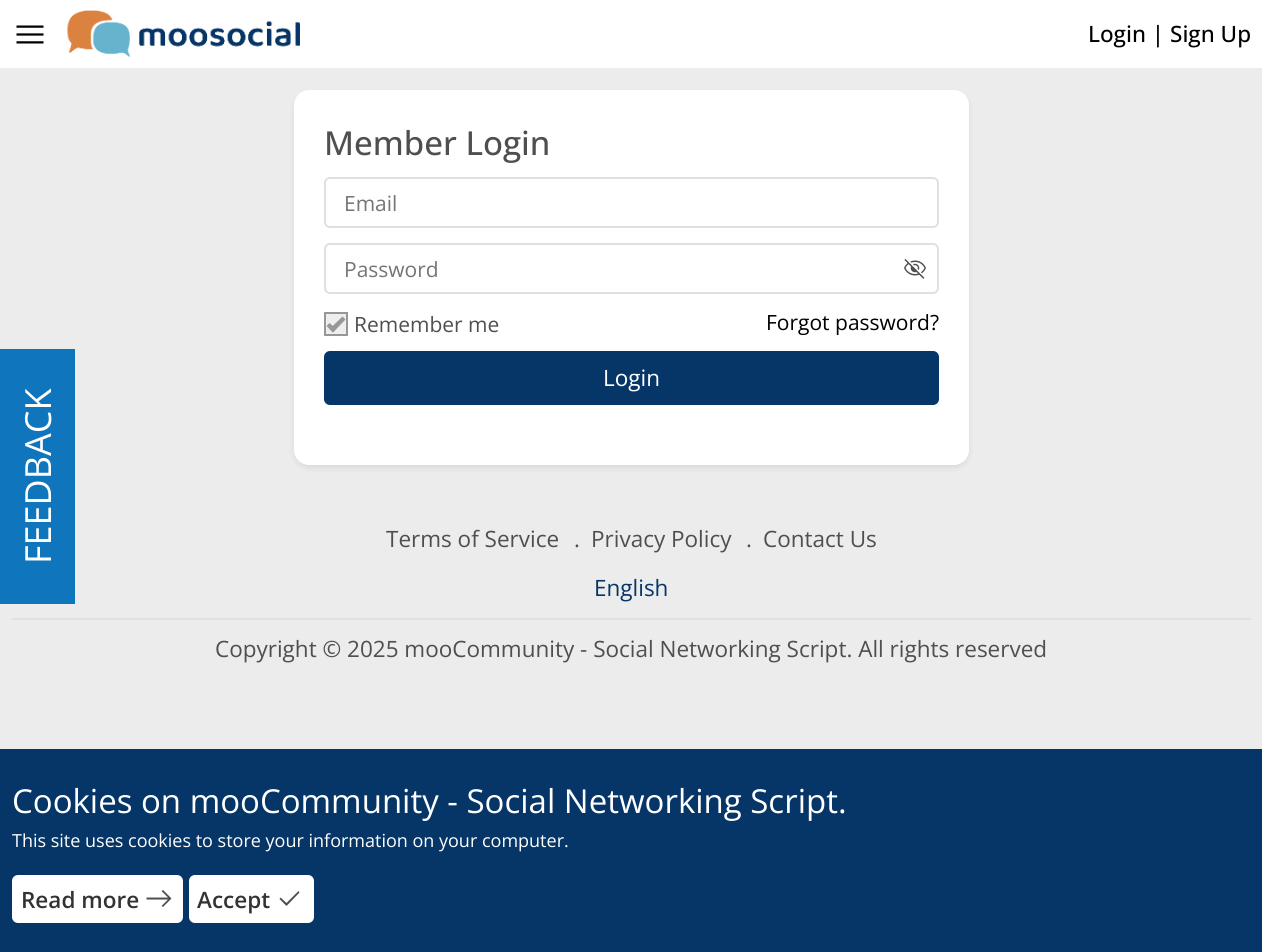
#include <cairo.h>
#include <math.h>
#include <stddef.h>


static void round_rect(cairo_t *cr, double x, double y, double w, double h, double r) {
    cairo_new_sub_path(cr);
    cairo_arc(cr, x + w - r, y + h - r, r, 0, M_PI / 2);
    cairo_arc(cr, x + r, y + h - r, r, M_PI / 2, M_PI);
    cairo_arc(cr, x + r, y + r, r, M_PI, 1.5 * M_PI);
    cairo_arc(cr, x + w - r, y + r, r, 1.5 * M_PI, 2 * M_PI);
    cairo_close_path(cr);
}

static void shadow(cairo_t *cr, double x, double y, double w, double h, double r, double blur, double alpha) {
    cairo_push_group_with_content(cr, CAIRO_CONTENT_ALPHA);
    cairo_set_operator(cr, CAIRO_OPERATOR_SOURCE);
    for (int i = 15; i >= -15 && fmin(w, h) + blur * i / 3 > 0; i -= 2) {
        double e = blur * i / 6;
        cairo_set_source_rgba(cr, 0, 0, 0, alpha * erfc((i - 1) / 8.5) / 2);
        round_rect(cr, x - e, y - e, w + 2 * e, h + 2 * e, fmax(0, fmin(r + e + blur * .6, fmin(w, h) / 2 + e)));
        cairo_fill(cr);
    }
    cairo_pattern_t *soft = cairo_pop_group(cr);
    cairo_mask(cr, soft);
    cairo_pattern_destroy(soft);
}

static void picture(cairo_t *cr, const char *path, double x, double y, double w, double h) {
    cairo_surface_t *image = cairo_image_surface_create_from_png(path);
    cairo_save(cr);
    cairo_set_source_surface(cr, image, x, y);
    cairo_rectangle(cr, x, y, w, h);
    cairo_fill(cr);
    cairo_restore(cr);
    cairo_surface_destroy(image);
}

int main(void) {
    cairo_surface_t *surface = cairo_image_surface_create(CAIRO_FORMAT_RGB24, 1262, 952);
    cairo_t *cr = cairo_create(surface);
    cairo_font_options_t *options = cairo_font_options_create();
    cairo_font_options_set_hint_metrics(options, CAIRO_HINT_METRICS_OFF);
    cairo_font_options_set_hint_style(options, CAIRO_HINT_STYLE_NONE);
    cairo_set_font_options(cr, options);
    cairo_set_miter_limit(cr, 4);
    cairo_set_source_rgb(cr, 0.925, 0.925, 0.925);
    cairo_paint(cr);
    cairo_set_source_rgb(cr, 1, 1, 1);
    cairo_rectangle(cr, 0, 0, 1262, 68);
    cairo_fill(cr);
    picture(cr, "img1.png", 16, 25, 28, 19);
    picture(cr, "img2.png", 67, 10, 233, 48);
    cairo_select_font_face(cr, "Open Sans Medium", CAIRO_FONT_SLANT_NORMAL, CAIRO_FONT_WEIGHT_NORMAL);
    cairo_set_font_size(cr, 22.5);
    cairo_set_source_rgb(cr, 0, 0, 0);
    cairo_move_to(cr, 1088, 42);
    cairo_show_text(cr, "Login | Sign Up");
    cairo_set_source_rgb(cr, 0, 0, 0);
    shadow(cr, 294, 93, 675, 375, 15, 3, 0.08);
    cairo_set_source_rgb(cr, 1, 1, 1);
    round_rect(cr, 294, 90, 675, 375, 15);
    cairo_fill(cr);
    cairo_set_font_size(cr, 33);
    cairo_set_source_rgb(cr, 0.31, 0.31, 0.31);
    cairo_move_to(cr, 324, 155);
    cairo_show_text(cr, "Member Login");
    round_rect(cr, 325, 178, 613, 49, 5);
    cairo_set_source_rgb(cr, 0.878, 0.878, 0.878);
    cairo_stroke(cr);
    cairo_select_font_face(cr, "Open Sans", CAIRO_FONT_SLANT_NORMAL, CAIRO_FONT_WEIGHT_NORMAL);
    cairo_set_font_size(cr, 21);
    cairo_set_source_rgb(cr, 0.459, 0.459, 0.459);
    cairo_move_to(cr, 344, 211);
    cairo_show_text(cr, "Email");
    round_rect(cr, 325, 244, 613, 49, 5);
    cairo_set_source_rgb(cr, 0.878, 0.878, 0.878);
    cairo_stroke(cr);
    cairo_set_source_rgb(cr, 0.459, 0.459, 0.459);
    cairo_move_to(cr, 344, 277);
    cairo_show_text(cr, "Password");
    picture(cr, "img3.png", 904, 259, 22, 20);
    cairo_set_source_rgb(cr, 0.933, 0.933, 0.933);
    cairo_rectangle(cr, 325, 313, 22, 22);
    cairo_fill_preserve(cr);
    cairo_set_source_rgb(cr, 0.592, 0.592, 0.592);
    cairo_stroke(cr);
    cairo_new_path(cr);
    cairo_move_to(cr, 342.5, 316.5);
    cairo_line_to(cr, 345.5, 319.5);
    cairo_line_to(cr, 333, 332.5);
    cairo_line_to(cr, 329.5, 329);
    cairo_close_path(cr);
    cairo_fill(cr);
    cairo_new_path(cr);
    cairo_move_to(cr, 329.5, 323);
    cairo_line_to(cr, 336, 329);
    cairo_line_to(cr, 333, 332.5);
    cairo_line_to(cr, 326.5, 326);
    cairo_close_path(cr);
    cairo_fill(cr);
    cairo_set_source_rgb(cr, 0.31, 0.31, 0.31);
    cairo_move_to(cr, 354, 332);
    cairo_show_text(cr, "Remember me");
    cairo_set_source_rgb(cr, 0, 0, 0);
    cairo_move_to(cr, 766, 330);
    cairo_show_text(cr, "Forgot password?");
    cairo_set_source_rgb(cr, 0.024, 0.208, 0.404);
    round_rect(cr, 325, 352, 613, 52, 5);
    cairo_fill_preserve(cr);
    cairo_stroke(cr);
    cairo_set_font_size(cr, 22.5);
    cairo_set_source_rgb(cr, 1, 1, 1);
    cairo_move_to(cr, 603, 386);
    cairo_show_text(cr, "Login");
    cairo_set_source_rgb(cr, 0.059, 0.459, 0.741);
    cairo_rectangle(cr, 0, 349, 75, 255);
    cairo_fill(cr);
    cairo_set_font_size(cr, 36);
    cairo_set_source_rgb(cr, 1, 1, 1);
    cairo_save(cr);
    cairo_translate(cr, 51, 564);
    cairo_rotate(cr, -90 * M_PI / 180);
    cairo_move_to(cr, 0, 0);
    cairo_show_text(cr, "FEEDBACK");
    cairo_restore(cr);
    cairo_set_source_rgb(cr, 0.878, 0.878, 0.878);
    cairo_rectangle(cr, 12, 618, 1239, 2);
    cairo_fill(cr);
    cairo_set_font_size(cr, 22.5);
    cairo_set_source_rgb(cr, 0.31, 0.31, 0.31);
    cairo_move_to(cr, 386, 547);
    cairo_show_text(cr, "Terms of Service");
    cairo_move_to(cr, 574, 547);
    cairo_show_text(cr, ".");
    cairo_move_to(cr, 591, 547);
    cairo_show_text(cr, "Privacy Policy");
    cairo_move_to(cr, 746, 547);
    cairo_show_text(cr, ".");
    cairo_move_to(cr, 763, 547);
    cairo_show_text(cr, "Contact Us");
    cairo_set_source_rgb(cr, 0.024, 0.208, 0.404);
    cairo_move_to(cr, 594, 596);
    cairo_show_text(cr, "English");
    cairo_set_source_rgb(cr, 0.31, 0.31, 0.31);
    cairo_move_to(cr, 215, 657);
    cairo_show_text(cr, "Copyright © 2025 mooCommunity - Social Networking Script. All rights reserved");
    cairo_set_source_rgb(cr, 0.024, 0.208, 0.404);
    cairo_rectangle(cr, 0, 749, 1262, 203);
    cairo_fill(cr);
    cairo_set_font_size(cr, 33);
    cairo_set_source_rgb(cr, 1, 1, 1);
    cairo_move_to(cr, 12, 813);
    cairo_show_text(cr, "Cookies on mooCommunity - Social Networking Script.");
    cairo_set_font_size(cr, 18);
    cairo_move_to(cr, 12, 847);
    cairo_show_text(cr, "This site uses cookies to store your information on your computer.");
    round_rect(cr, 13, 876, 169, 46, 5);
    cairo_fill_preserve(cr);
    cairo_stroke(cr);
    cairo_select_font_face(cr, "Open Sans SemiBold", CAIRO_FONT_SLANT_NORMAL, CAIRO_FONT_WEIGHT_NORMAL);
    cairo_set_font_size(cr, 22.5);
    cairo_set_source_rgb(cr, 0.2, 0.2, 0.2);
    cairo_move_to(cr, 21, 908);
    cairo_show_text(cr, "Read more");
    cairo_set_source_rgb(cr, 0.31, 0.31, 0.31);
    cairo_new_path(cr);
    cairo_move_to(cr, 163, 907);
    cairo_line_to(cr, 161.5, 906);
    cairo_line_to(cr, 168, 899.5);
    cairo_line_to(cr, 146.5, 899.5);
    cairo_line_to(cr, 146.5, 897.5);
    cairo_line_to(cr, 168, 897.5);
    cairo_line_to(cr, 161.5, 891);
    cairo_line_to(cr, 163, 890);
    cairo_line_to(cr, 171.5, 898.5);
    cairo_close_path(cr);
    cairo_fill(cr);
    cairo_set_source_rgb(cr, 1, 1, 1);
    round_rect(cr, 190, 876, 123, 46, 5);
    cairo_fill_preserve(cr);
    cairo_stroke(cr);
    cairo_set_source_rgb(cr, 0.2, 0.2, 0.2);
    cairo_move_to(cr, 197, 908);
    cairo_show_text(cr, "Accept");
    cairo_set_source_rgb(cr, 0.31, 0.31, 0.31);
    cairo_new_path(cr);
    cairo_move_to(cr, 286.5, 906);
    cairo_line_to(cr, 279.5, 899);
    cairo_line_to(cr, 280.5, 897.5);
    cairo_line_to(cr, 286.5, 903);
    cairo_line_to(cr, 298.5, 891);
    cairo_line_to(cr, 299.5, 892.5);
    cairo_close_path(cr);
    cairo_fill(cr);
    cairo_surface_write_to_png(surface, "page.png");
    cairo_font_options_destroy(options);
    cairo_destroy(cr);
    cairo_surface_destroy(surface);
    return 0;
}
